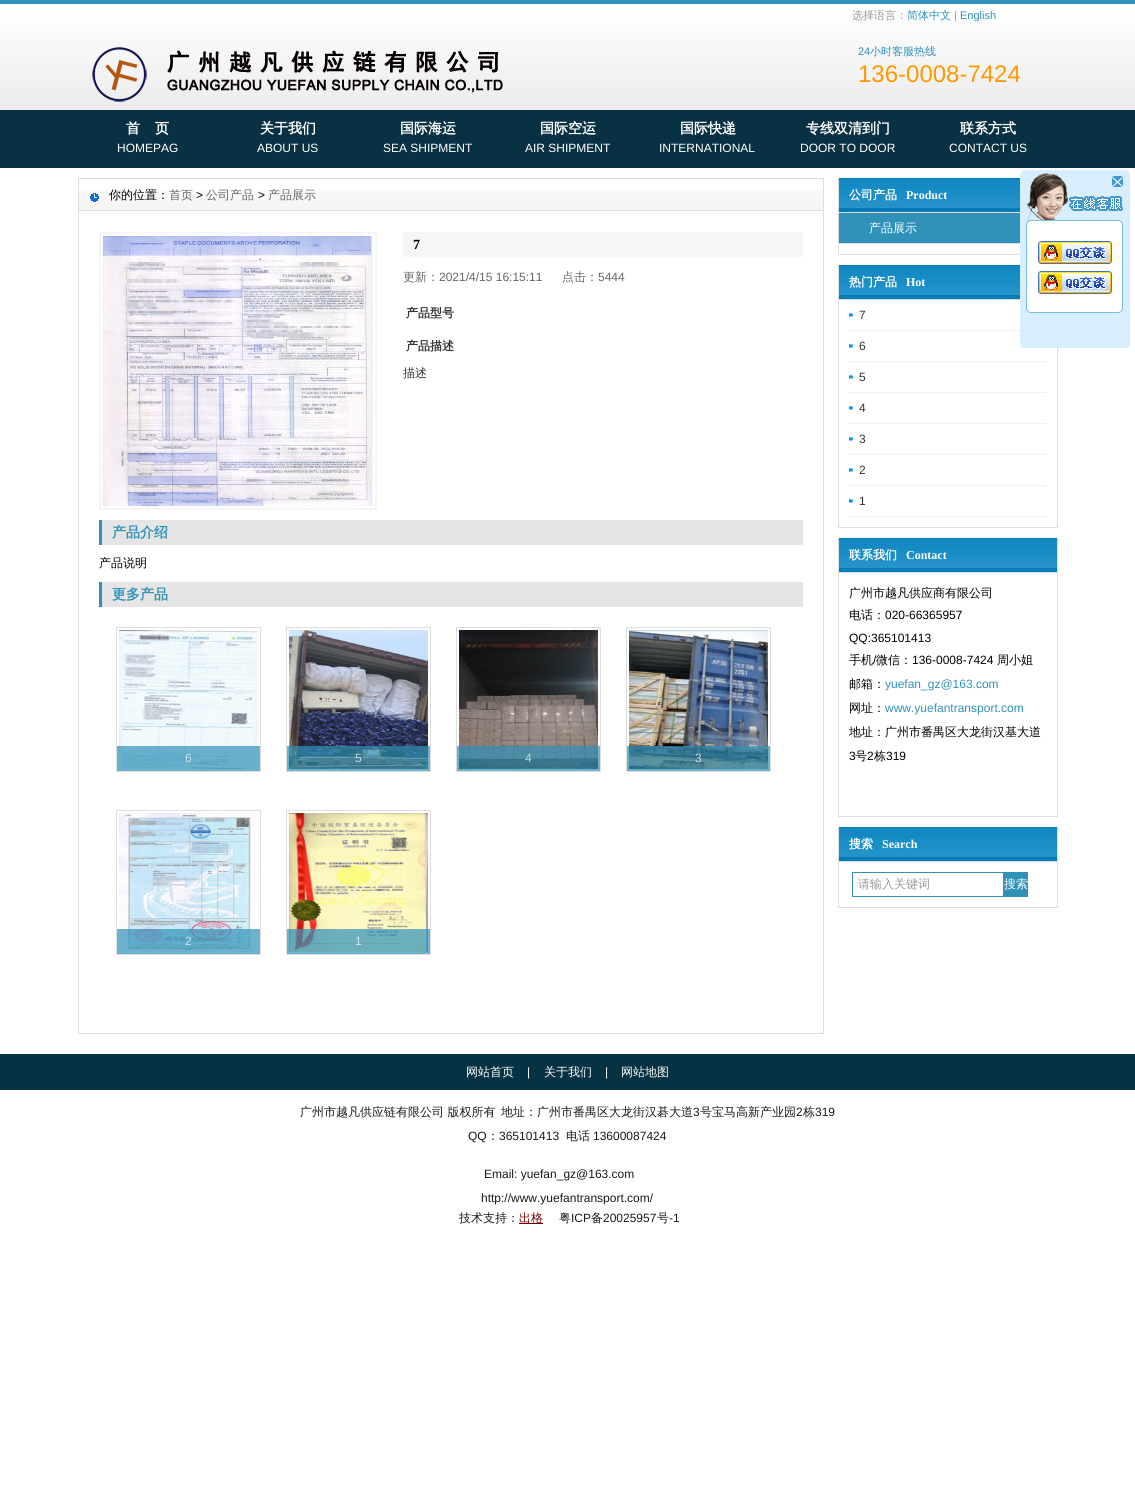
#include <cairo.h>
#include <math.h>
#include <stddef.h>


static void picture(cairo_t *cr, const char *path, double x, double y, double w, double h) {
    cairo_surface_t *image = cairo_image_surface_create_from_png(path);
    cairo_save(cr);
    cairo_set_source_surface(cr, image, x, y);
    cairo_rectangle(cr, x, y, w, h);
    cairo_fill(cr);
    cairo_restore(cr);
    cairo_surface_destroy(image);
}

int main(void) {
    cairo_surface_t *surface = cairo_image_surface_create(CAIRO_FORMAT_RGB24, 1135, 1498);
    cairo_t *cr = cairo_create(surface);
    cairo_font_options_t *options = cairo_font_options_create();
    cairo_font_options_set_hint_metrics(options, CAIRO_HINT_METRICS_OFF);
    cairo_font_options_set_hint_style(options, CAIRO_HINT_STYLE_NONE);
    cairo_set_font_options(cr, options);
    cairo_set_miter_limit(cr, 4);
    cairo_set_source_rgb(cr, 1, 1, 1);
    cairo_paint(cr);
    picture(cr, "img1.png", 0, 0, 1135, 110);
    cairo_select_font_face(cr, "WenQuanYi Zen Hei Medium", CAIRO_FONT_SLANT_NORMAL, CAIRO_FONT_WEIGHT_NORMAL);
    cairo_set_font_size(cr, 11);
    cairo_set_source_rgb(cr, 0.6, 0.6, 0.6);
    cairo_move_to(cr, 852, 19);
    cairo_show_text(cr, "选择语言：");
    cairo_set_source_rgb(cr, 0.188, 0.573, 0.725);
    cairo_move_to(cr, 907, 19);
    cairo_show_text(cr, "简体中文");
    cairo_select_font_face(cr, "Liberation Sans", CAIRO_FONT_SLANT_NORMAL, CAIRO_FONT_WEIGHT_NORMAL);
    cairo_set_source_rgb(cr, 0.6, 0.6, 0.6);
    cairo_move_to(cr, 954, 19);
    cairo_show_text(cr, "|");
    cairo_set_source_rgb(cr, 0.188, 0.573, 0.725);
    cairo_move_to(cr, 960, 19);
    cairo_show_text(cr, "English");
    picture(cr, "img2.png", 92, 47, 411, 55);
    cairo_move_to(cr, 858, 55);
    cairo_show_text(cr, "24");
    cairo_select_font_face(cr, "WenQuanYi Zen Hei Medium", CAIRO_FONT_SLANT_NORMAL, CAIRO_FONT_WEIGHT_NORMAL);
    cairo_move_to(cr, 870, 55);
    cairo_show_text(cr, "小时客服热线");
    cairo_select_font_face(cr, "Liberation Sans", CAIRO_FONT_SLANT_NORMAL, CAIRO_FONT_WEIGHT_NORMAL);
    cairo_set_font_size(cr, 24);
    cairo_set_source_rgb(cr, 1, 0.6, 0);
    cairo_move_to(cr, 858, 82);
    cairo_show_text(cr, "136-0008-7424");
    cairo_set_source_rgb(cr, 0.035, 0.196, 0.267);
    cairo_rectangle(cr, 0, 110, 1135, 58);
    cairo_fill(cr);
    cairo_select_font_face(cr, "WenQuanYi Zen Hei", CAIRO_FONT_SLANT_NORMAL, CAIRO_FONT_WEIGHT_BOLD);
    cairo_set_font_size(cr, 14);
    cairo_set_source_rgb(cr, 1, 1, 1);
    cairo_move_to(cr, 126, 133);
    cairo_show_text(cr, "首");
    cairo_move_to(cr, 155, 133);
    cairo_show_text(cr, "页");
    cairo_select_font_face(cr, "Liberation Sans", CAIRO_FONT_SLANT_NORMAL, CAIRO_FONT_WEIGHT_NORMAL);
    cairo_set_font_size(cr, 12);
    cairo_move_to(cr, 117, 152);
    cairo_show_text(cr, "HOMEPAG");
    cairo_select_font_face(cr, "WenQuanYi Zen Hei", CAIRO_FONT_SLANT_NORMAL, CAIRO_FONT_WEIGHT_BOLD);
    cairo_set_font_size(cr, 14);
    cairo_move_to(cr, 260, 133);
    cairo_show_text(cr, "关于我们");
    cairo_select_font_face(cr, "Liberation Sans", CAIRO_FONT_SLANT_NORMAL, CAIRO_FONT_WEIGHT_NORMAL);
    cairo_set_font_size(cr, 12);
    cairo_move_to(cr, 257, 152);
    cairo_show_text(cr, "ABOUT US");
    cairo_select_font_face(cr, "WenQuanYi Zen Hei", CAIRO_FONT_SLANT_NORMAL, CAIRO_FONT_WEIGHT_BOLD);
    cairo_set_font_size(cr, 14);
    cairo_move_to(cr, 400, 133);
    cairo_show_text(cr, "国际海运");
    cairo_select_font_face(cr, "Liberation Sans", CAIRO_FONT_SLANT_NORMAL, CAIRO_FONT_WEIGHT_NORMAL);
    cairo_set_font_size(cr, 12);
    cairo_move_to(cr, 383, 152);
    cairo_show_text(cr, "SEA SHIPMENT");
    cairo_select_font_face(cr, "WenQuanYi Zen Hei", CAIRO_FONT_SLANT_NORMAL, CAIRO_FONT_WEIGHT_BOLD);
    cairo_set_font_size(cr, 14);
    cairo_move_to(cr, 540, 133);
    cairo_show_text(cr, "国际空运");
    cairo_select_font_face(cr, "Liberation Sans", CAIRO_FONT_SLANT_NORMAL, CAIRO_FONT_WEIGHT_NORMAL);
    cairo_set_font_size(cr, 12);
    cairo_move_to(cr, 525, 152);
    cairo_show_text(cr, "AIR SHIPMENT");
    cairo_select_font_face(cr, "WenQuanYi Zen Hei", CAIRO_FONT_SLANT_NORMAL, CAIRO_FONT_WEIGHT_BOLD);
    cairo_set_font_size(cr, 14);
    cairo_move_to(cr, 680, 133);
    cairo_show_text(cr, "国际快递");
    cairo_select_font_face(cr, "Liberation Sans", CAIRO_FONT_SLANT_NORMAL, CAIRO_FONT_WEIGHT_NORMAL);
    cairo_set_font_size(cr, 12);
    cairo_move_to(cr, 659, 152);
    cairo_show_text(cr, "INTERNATIONAL");
    cairo_select_font_face(cr, "WenQuanYi Zen Hei", CAIRO_FONT_SLANT_NORMAL, CAIRO_FONT_WEIGHT_BOLD);
    cairo_set_font_size(cr, 14);
    cairo_move_to(cr, 806, 133);
    cairo_show_text(cr, "专线双清到门");
    cairo_select_font_face(cr, "Liberation Sans", CAIRO_FONT_SLANT_NORMAL, CAIRO_FONT_WEIGHT_NORMAL);
    cairo_set_font_size(cr, 12);
    cairo_move_to(cr, 800, 152);
    cairo_show_text(cr, "DOOR TO DOOR");
    cairo_select_font_face(cr, "WenQuanYi Zen Hei", CAIRO_FONT_SLANT_NORMAL, CAIRO_FONT_WEIGHT_BOLD);
    cairo_set_font_size(cr, 14);
    cairo_move_to(cr, 960, 133);
    cairo_show_text(cr, "联系方式");
    cairo_select_font_face(cr, "Liberation Sans", CAIRO_FONT_SLANT_NORMAL, CAIRO_FONT_WEIGHT_NORMAL);
    cairo_set_font_size(cr, 12);
    cairo_move_to(cr, 949, 152);
    cairo_show_text(cr, "CONTACT US");
    cairo_rectangle(cr, 78.5, 178.5, 745, 855);
    cairo_set_source_rgb(cr, 0.867, 0.867, 0.867);
    cairo_set_line_width(cr, 1);
    cairo_stroke(cr);
    picture(cr, "img3.png", 79, 190, 744, 21);
    picture(cr, "img4.png", 90, 193, 9, 9);
    cairo_select_font_face(cr, "WenQuanYi Zen Hei Medium", CAIRO_FONT_SLANT_NORMAL, CAIRO_FONT_WEIGHT_NORMAL);
    cairo_set_source_rgb(cr, 0, 0, 0);
    cairo_move_to(cr, 109, 199);
    cairo_show_text(cr, "你的位置：");
    cairo_set_source_rgb(cr, 0.4, 0.4, 0.4);
    cairo_move_to(cr, 169, 199);
    cairo_show_text(cr, "首页");
    cairo_select_font_face(cr, "Liberation Sans", CAIRO_FONT_SLANT_NORMAL, CAIRO_FONT_WEIGHT_NORMAL);
    cairo_set_source_rgb(cr, 0, 0, 0);
    cairo_move_to(cr, 196, 199);
    cairo_show_text(cr, ">");
    cairo_select_font_face(cr, "WenQuanYi Zen Hei Medium", CAIRO_FONT_SLANT_NORMAL, CAIRO_FONT_WEIGHT_NORMAL);
    cairo_set_source_rgb(cr, 0.4, 0.4, 0.4);
    cairo_move_to(cr, 206, 199);
    cairo_show_text(cr, "公司产品");
    cairo_select_font_face(cr, "Liberation Sans", CAIRO_FONT_SLANT_NORMAL, CAIRO_FONT_WEIGHT_NORMAL);
    cairo_set_source_rgb(cr, 0, 0, 0);
    cairo_move_to(cr, 258, 199);
    cairo_show_text(cr, ">");
    cairo_select_font_face(cr, "WenQuanYi Zen Hei Medium", CAIRO_FONT_SLANT_NORMAL, CAIRO_FONT_WEIGHT_NORMAL);
    cairo_set_source_rgb(cr, 0.4, 0.4, 0.4);
    cairo_move_to(cr, 268, 199);
    cairo_show_text(cr, "产品展示");
    cairo_rectangle(cr, 100, 233, 276, 276);
    cairo_set_source_rgb(cr, 0.961, 0.961, 0.961);
    cairo_set_line_width(cr, 2);
    cairo_stroke(cr);
    picture(cr, "img5.png", 103, 236, 270, 270);
    cairo_rectangle(cr, 403, 232, 400, 25);
    cairo_fill(cr);
    cairo_select_font_face(cr, "Liberation Serif", CAIRO_FONT_SLANT_NORMAL, CAIRO_FONT_WEIGHT_BOLD);
    cairo_set_font_size(cr, 14);
    cairo_set_source_rgb(cr, 0, 0, 0);
    cairo_move_to(cr, 413, 249);
    cairo_show_text(cr, "7");
    cairo_select_font_face(cr, "WenQuanYi Zen Hei Medium", CAIRO_FONT_SLANT_NORMAL, CAIRO_FONT_WEIGHT_NORMAL);
    cairo_set_font_size(cr, 12);
    cairo_set_source_rgb(cr, 0.4, 0.4, 0.4);
    cairo_move_to(cr, 403, 281);
    cairo_show_text(cr, "更新：");
    cairo_select_font_face(cr, "Liberation Sans", CAIRO_FONT_SLANT_NORMAL, CAIRO_FONT_WEIGHT_NORMAL);
    cairo_move_to(cr, 439, 281);
    cairo_show_text(cr, "2021/4/15 16:15:11");
    cairo_select_font_face(cr, "WenQuanYi Zen Hei Medium", CAIRO_FONT_SLANT_NORMAL, CAIRO_FONT_WEIGHT_NORMAL);
    cairo_move_to(cr, 562, 281);
    cairo_show_text(cr, "点击：");
    cairo_select_font_face(cr, "Liberation Sans", CAIRO_FONT_SLANT_NORMAL, CAIRO_FONT_WEIGHT_NORMAL);
    cairo_move_to(cr, 598, 281);
    cairo_show_text(cr, "5444");
    cairo_select_font_face(cr, "WenQuanYi Zen Hei", CAIRO_FONT_SLANT_NORMAL, CAIRO_FONT_WEIGHT_BOLD);
    cairo_set_source_rgb(cr, 0.2, 0.2, 0.2);
    cairo_move_to(cr, 406, 317);
    cairo_show_text(cr, "产品型号");
    cairo_move_to(cr, 406, 350);
    cairo_show_text(cr, "产品描述");
    cairo_select_font_face(cr, "WenQuanYi Zen Hei Medium", CAIRO_FONT_SLANT_NORMAL, CAIRO_FONT_WEIGHT_NORMAL);
    cairo_move_to(cr, 403, 377);
    cairo_show_text(cr, "描述");
    cairo_set_source_rgb(cr, 0.898, 0.898, 0.898);
    cairo_rectangle(cr, 102, 520, 701, 25);
    cairo_fill(cr);
    cairo_set_source_rgb(cr, 0.188, 0.573, 0.725);
    cairo_rectangle(cr, 99, 520, 3, 25);
    cairo_fill(cr);
    cairo_select_font_face(cr, "WenQuanYi Zen Hei", CAIRO_FONT_SLANT_NORMAL, CAIRO_FONT_WEIGHT_BOLD);
    cairo_set_font_size(cr, 14);
    cairo_move_to(cr, 112, 537);
    cairo_show_text(cr, "产品介绍");
    cairo_select_font_face(cr, "WenQuanYi Zen Hei Medium", CAIRO_FONT_SLANT_NORMAL, CAIRO_FONT_WEIGHT_NORMAL);
    cairo_set_font_size(cr, 12);
    cairo_set_source_rgb(cr, 0, 0, 0);
    cairo_move_to(cr, 99, 567);
    cairo_show_text(cr, "产品说明");
    cairo_set_source_rgb(cr, 0.898, 0.898, 0.898);
    cairo_rectangle(cr, 102, 582, 701, 25);
    cairo_fill(cr);
    cairo_set_source_rgb(cr, 0.188, 0.573, 0.725);
    cairo_rectangle(cr, 99, 582, 3, 25);
    cairo_fill(cr);
    cairo_select_font_face(cr, "WenQuanYi Zen Hei", CAIRO_FONT_SLANT_NORMAL, CAIRO_FONT_WEIGHT_BOLD);
    cairo_set_font_size(cr, 14);
    cairo_move_to(cr, 112, 599);
    cairo_show_text(cr, "更多产品");
    cairo_rectangle(cr, 116.5, 627.5, 144, 144);
    cairo_set_source_rgb(cr, 0.871, 0.871, 0.863);
    cairo_set_line_width(cr, 1);
    cairo_stroke(cr);
    picture(cr, "img6.png", 119, 630, 139, 139);
    cairo_set_source_rgba(cr, 0.188, 0.573, 0.725, 0.7);
    cairo_rectangle(cr, 117, 746, 143, 25);
    cairo_fill(cr);
    cairo_select_font_face(cr, "Liberation Sans", CAIRO_FONT_SLANT_NORMAL, CAIRO_FONT_WEIGHT_NORMAL);
    cairo_set_font_size(cr, 12);
    cairo_set_source_rgb(cr, 0.816, 0.902, 0.937);
    cairo_move_to(cr, 185, 762);
    cairo_show_text(cr, "6");
    cairo_rectangle(cr, 286.5, 627.5, 144, 144);
    cairo_set_source_rgb(cr, 0.871, 0.871, 0.863);
    cairo_stroke(cr);
    picture(cr, "img7.png", 289, 630, 139, 139);
    cairo_set_source_rgba(cr, 0.188, 0.573, 0.725, 0.7);
    cairo_rectangle(cr, 287, 746, 143, 25);
    cairo_fill(cr);
    cairo_set_source_rgb(cr, 0.776, 0.851, 0.878);
    cairo_move_to(cr, 355, 762);
    cairo_show_text(cr, "5");
    cairo_rectangle(cr, 456.5, 627.5, 144, 144);
    cairo_set_source_rgb(cr, 0.871, 0.871, 0.863);
    cairo_stroke(cr);
    picture(cr, "img8.png", 459, 630, 139, 139);
    cairo_set_source_rgba(cr, 0.188, 0.573, 0.725, 0.7);
    cairo_rectangle(cr, 457, 746, 143, 25);
    cairo_fill(cr);
    cairo_set_source_rgb(cr, 0.776, 0.851, 0.878);
    cairo_move_to(cr, 525, 762);
    cairo_show_text(cr, "4");
    cairo_rectangle(cr, 626.5, 627.5, 144, 144);
    cairo_set_source_rgb(cr, 0.871, 0.871, 0.863);
    cairo_stroke(cr);
    picture(cr, "img9.png", 629, 630, 139, 139);
    cairo_set_source_rgba(cr, 0.188, 0.573, 0.725, 0.7);
    cairo_rectangle(cr, 627, 746, 143, 25);
    cairo_fill(cr);
    cairo_set_source_rgb(cr, 0.776, 0.851, 0.878);
    cairo_move_to(cr, 695, 762);
    cairo_show_text(cr, "3");
    cairo_rectangle(cr, 116.5, 810.5, 144, 144);
    cairo_set_source_rgb(cr, 0.871, 0.871, 0.863);
    cairo_stroke(cr);
    picture(cr, "img10.png", 119, 813, 137, 139);
    cairo_set_source_rgba(cr, 0.188, 0.573, 0.725, 0.7);
    cairo_rectangle(cr, 117, 929, 143, 25);
    cairo_fill(cr);
    cairo_set_source_rgb(cr, 0.816, 0.902, 0.937);
    cairo_move_to(cr, 185, 945);
    cairo_show_text(cr, "2");
    cairo_rectangle(cr, 286.5, 810.5, 144, 144);
    cairo_set_source_rgb(cr, 0.871, 0.871, 0.863);
    cairo_stroke(cr);
    picture(cr, "img11.png", 289, 813, 139, 139);
    cairo_set_source_rgba(cr, 0.188, 0.573, 0.725, 0.7);
    cairo_rectangle(cr, 287, 929, 143, 25);
    cairo_fill(cr);
    cairo_set_source_rgb(cr, 0.816, 0.902, 0.937);
    cairo_move_to(cr, 355, 945);
    cairo_show_text(cr, "1");
    cairo_set_source_rgb(cr, 0.867, 0.867, 0.867);
    cairo_rectangle(cr, 838, 254, 182, 1);
    cairo_fill(cr);
    cairo_rectangle(cr, 838, 178, 1, 77);
    cairo_fill(cr);
    picture(cr, "img12.png", 839, 178, 181, 34);
    cairo_rectangle(cr, 839, 212, 181, 1);
    cairo_fill(cr);
    cairo_select_font_face(cr, "WenQuanYi Zen Hei", CAIRO_FONT_SLANT_NORMAL, CAIRO_FONT_WEIGHT_BOLD);
    cairo_set_source_rgb(cr, 1, 1, 1);
    cairo_move_to(cr, 849, 199);
    cairo_show_text(cr, "公司产品");
    cairo_select_font_face(cr, "Liberation Serif", CAIRO_FONT_SLANT_NORMAL, CAIRO_FONT_WEIGHT_BOLD);
    cairo_move_to(cr, 906, 199);
    cairo_show_text(cr, "Product");
    cairo_set_source_rgb(cr, 0.188, 0.573, 0.725);
    cairo_rectangle(cr, 839, 213, 181, 30);
    cairo_fill(cr);
    cairo_set_source_rgb(cr, 0.867, 0.867, 0.867);
    cairo_rectangle(cr, 839, 243, 181, 1);
    cairo_fill(cr);
    cairo_select_font_face(cr, "WenQuanYi Zen Hei Medium", CAIRO_FONT_SLANT_NORMAL, CAIRO_FONT_WEIGHT_NORMAL);
    cairo_set_source_rgb(cr, 1, 1, 1);
    cairo_move_to(cr, 869, 232);
    cairo_show_text(cr, "产品展示");
    cairo_set_source_rgb(cr, 0.867, 0.867, 0.867);
    cairo_rectangle(cr, 1057, 348, 1, 180);
    cairo_fill(cr);
    cairo_rectangle(cr, 838, 527, 220, 1);
    cairo_fill(cr);
    cairo_rectangle(cr, 838, 265, 1, 263);
    cairo_fill(cr);
    picture(cr, "img12.png", 839, 265, 181, 34);
    cairo_rectangle(cr, 839, 299, 181, 1);
    cairo_fill(cr);
    cairo_select_font_face(cr, "WenQuanYi Zen Hei", CAIRO_FONT_SLANT_NORMAL, CAIRO_FONT_WEIGHT_BOLD);
    cairo_set_source_rgb(cr, 1, 1, 1);
    cairo_move_to(cr, 849, 286);
    cairo_show_text(cr, "热门产品");
    cairo_select_font_face(cr, "Liberation Serif", CAIRO_FONT_SLANT_NORMAL, CAIRO_FONT_WEIGHT_BOLD);
    cairo_move_to(cr, 906, 286);
    cairo_show_text(cr, "Hot");
    picture(cr, "img13.png", 849, 312, 4, 5);
    cairo_new_path(cr);
    cairo_move_to(cr, 849, 330.5);
    cairo_line_to(cr, 1047, 330.5);
    cairo_set_source_rgb(cr, 0.867, 0.867, 0.867);
    cairo_set_dash(cr, (double[]){1, 1}, 2, 0);
    cairo_stroke(cr);
    cairo_select_font_face(cr, "Liberation Sans", CAIRO_FONT_SLANT_NORMAL, CAIRO_FONT_WEIGHT_NORMAL);
    cairo_set_source_rgb(cr, 0.2, 0.2, 0.2);
    cairo_move_to(cr, 859, 319);
    cairo_show_text(cr, "7");
    picture(cr, "img13.png", 849, 343, 4, 5);
    cairo_new_path(cr);
    cairo_move_to(cr, 849, 361.5);
    cairo_line_to(cr, 1047, 361.5);
    cairo_set_source_rgb(cr, 0.867, 0.867, 0.867);
    cairo_stroke(cr);
    cairo_set_source_rgb(cr, 0.2, 0.2, 0.2);
    cairo_move_to(cr, 859, 350);
    cairo_show_text(cr, "6");
    picture(cr, "img13.png", 849, 374, 4, 5);
    cairo_new_path(cr);
    cairo_move_to(cr, 849, 392.5);
    cairo_line_to(cr, 1047, 392.5);
    cairo_set_source_rgb(cr, 0.867, 0.867, 0.867);
    cairo_stroke(cr);
    cairo_set_source_rgb(cr, 0.2, 0.2, 0.2);
    cairo_move_to(cr, 859, 381);
    cairo_show_text(cr, "5");
    picture(cr, "img13.png", 849, 405, 4, 5);
    cairo_new_path(cr);
    cairo_move_to(cr, 849, 423.5);
    cairo_line_to(cr, 1047, 423.5);
    cairo_set_source_rgb(cr, 0.867, 0.867, 0.867);
    cairo_stroke(cr);
    cairo_set_source_rgb(cr, 0.2, 0.2, 0.2);
    cairo_move_to(cr, 859, 412);
    cairo_show_text(cr, "4");
    picture(cr, "img13.png", 849, 436, 4, 5);
    cairo_new_path(cr);
    cairo_move_to(cr, 849, 454.5);
    cairo_line_to(cr, 1047, 454.5);
    cairo_set_source_rgb(cr, 0.867, 0.867, 0.867);
    cairo_stroke(cr);
    cairo_set_source_rgb(cr, 0.2, 0.2, 0.2);
    cairo_move_to(cr, 859, 443);
    cairo_show_text(cr, "3");
    picture(cr, "img13.png", 849, 467, 4, 5);
    cairo_new_path(cr);
    cairo_move_to(cr, 849, 485.5);
    cairo_line_to(cr, 1047, 485.5);
    cairo_set_source_rgb(cr, 0.867, 0.867, 0.867);
    cairo_stroke(cr);
    cairo_set_source_rgb(cr, 0.2, 0.2, 0.2);
    cairo_move_to(cr, 859, 474);
    cairo_show_text(cr, "2");
    picture(cr, "img13.png", 849, 498, 4, 5);
    cairo_new_path(cr);
    cairo_move_to(cr, 849, 516.5);
    cairo_line_to(cr, 1047, 516.5);
    cairo_set_source_rgb(cr, 0.867, 0.867, 0.867);
    cairo_stroke(cr);
    cairo_set_source_rgb(cr, 0.2, 0.2, 0.2);
    cairo_move_to(cr, 859, 505);
    cairo_show_text(cr, "1");
    cairo_set_source_rgb(cr, 0.867, 0.867, 0.867);
    cairo_rectangle(cr, 1057, 538, 1, 279);
    cairo_fill(cr);
    cairo_rectangle(cr, 838, 816, 220, 1);
    cairo_fill(cr);
    cairo_rectangle(cr, 838, 538, 1, 279);
    cairo_fill(cr);
    picture(cr, "img14.png", 839, 538, 218, 34);
    cairo_rectangle(cr, 839, 572, 218, 1);
    cairo_fill(cr);
    cairo_select_font_face(cr, "WenQuanYi Zen Hei", CAIRO_FONT_SLANT_NORMAL, CAIRO_FONT_WEIGHT_BOLD);
    cairo_set_source_rgb(cr, 1, 1, 1);
    cairo_move_to(cr, 849, 559);
    cairo_show_text(cr, "联系我们");
    cairo_select_font_face(cr, "Liberation Serif", CAIRO_FONT_SLANT_NORMAL, CAIRO_FONT_WEIGHT_BOLD);
    cairo_move_to(cr, 906, 559);
    cairo_show_text(cr, "Contact");
    cairo_select_font_face(cr, "WenQuanYi Zen Hei Medium", CAIRO_FONT_SLANT_NORMAL, CAIRO_FONT_WEIGHT_NORMAL);
    cairo_set_source_rgb(cr, 0, 0, 0);
    cairo_move_to(cr, 849, 597);
    cairo_show_text(cr, "广州市越凡供应商有限公司");
    cairo_move_to(cr, 849, 619);
    cairo_show_text(cr, "电话：");
    cairo_select_font_face(cr, "Liberation Sans", CAIRO_FONT_SLANT_NORMAL, CAIRO_FONT_WEIGHT_NORMAL);
    cairo_move_to(cr, 885, 619);
    cairo_show_text(cr, "020-66365957");
    cairo_move_to(cr, 849, 642);
    cairo_show_text(cr, "QQ:365101413");
    cairo_select_font_face(cr, "WenQuanYi Zen Hei Medium", CAIRO_FONT_SLANT_NORMAL, CAIRO_FONT_WEIGHT_NORMAL);
    cairo_move_to(cr, 849, 664);
    cairo_show_text(cr, "手机");
    cairo_select_font_face(cr, "Liberation Sans", CAIRO_FONT_SLANT_NORMAL, CAIRO_FONT_WEIGHT_NORMAL);
    cairo_move_to(cr, 873, 664);
    cairo_show_text(cr, "/");
    cairo_select_font_face(cr, "WenQuanYi Zen Hei Medium", CAIRO_FONT_SLANT_NORMAL, CAIRO_FONT_WEIGHT_NORMAL);
    cairo_move_to(cr, 876, 664);
    cairo_show_text(cr, "微信：");
    cairo_select_font_face(cr, "Liberation Sans", CAIRO_FONT_SLANT_NORMAL, CAIRO_FONT_WEIGHT_NORMAL);
    cairo_move_to(cr, 912, 664);
    cairo_show_text(cr, "136-0008-7424");
    cairo_select_font_face(cr, "WenQuanYi Zen Hei Medium", CAIRO_FONT_SLANT_NORMAL, CAIRO_FONT_WEIGHT_NORMAL);
    cairo_move_to(cr, 997, 664);
    cairo_show_text(cr, "周小姐");
    cairo_move_to(cr, 849, 688);
    cairo_show_text(cr, "邮箱：");
    cairo_select_font_face(cr, "Liberation Sans", CAIRO_FONT_SLANT_NORMAL, CAIRO_FONT_WEIGHT_NORMAL);
    cairo_set_source_rgb(cr, 0.188, 0.573, 0.725);
    cairo_move_to(cr, 885, 688);
    cairo_show_text(cr, "yuefan_gz@163.com");
    cairo_select_font_face(cr, "WenQuanYi Zen Hei Medium", CAIRO_FONT_SLANT_NORMAL, CAIRO_FONT_WEIGHT_NORMAL);
    cairo_set_source_rgb(cr, 0, 0, 0);
    cairo_move_to(cr, 849, 712);
    cairo_show_text(cr, "网址：");
    cairo_select_font_face(cr, "Liberation Sans", CAIRO_FONT_SLANT_NORMAL, CAIRO_FONT_WEIGHT_NORMAL);
    cairo_set_source_rgb(cr, 0.188, 0.573, 0.725);
    cairo_move_to(cr, 885, 712);
    cairo_show_text(cr, "www.yuefantransport.com");
    cairo_select_font_face(cr, "WenQuanYi Zen Hei Medium", CAIRO_FONT_SLANT_NORMAL, CAIRO_FONT_WEIGHT_NORMAL);
    cairo_set_source_rgb(cr, 0, 0, 0);
    cairo_move_to(cr, 849, 736);
    cairo_show_text(cr, "地址：广州市番禺区大龙街汉基大道");
    cairo_select_font_face(cr, "Liberation Sans", CAIRO_FONT_SLANT_NORMAL, CAIRO_FONT_WEIGHT_NORMAL);
    cairo_move_to(cr, 849, 760);
    cairo_show_text(cr, "3");
    cairo_select_font_face(cr, "WenQuanYi Zen Hei Medium", CAIRO_FONT_SLANT_NORMAL, CAIRO_FONT_WEIGHT_NORMAL);
    cairo_move_to(cr, 855, 760);
    cairo_show_text(cr, "号");
    cairo_select_font_face(cr, "Liberation Sans", CAIRO_FONT_SLANT_NORMAL, CAIRO_FONT_WEIGHT_NORMAL);
    cairo_move_to(cr, 867, 760);
    cairo_show_text(cr, "2");
    cairo_select_font_face(cr, "WenQuanYi Zen Hei Medium", CAIRO_FONT_SLANT_NORMAL, CAIRO_FONT_WEIGHT_NORMAL);
    cairo_move_to(cr, 874, 760);
    cairo_show_text(cr, "栋");
    cairo_select_font_face(cr, "Liberation Sans", CAIRO_FONT_SLANT_NORMAL, CAIRO_FONT_WEIGHT_NORMAL);
    cairo_move_to(cr, 886, 760);
    cairo_show_text(cr, "319");
    cairo_set_source_rgb(cr, 0.867, 0.867, 0.867);
    cairo_rectangle(cr, 1057, 827, 1, 81);
    cairo_fill(cr);
    cairo_rectangle(cr, 838, 907, 220, 1);
    cairo_fill(cr);
    cairo_rectangle(cr, 838, 827, 1, 81);
    cairo_fill(cr);
    picture(cr, "img14.png", 839, 827, 218, 34);
    cairo_rectangle(cr, 839, 861, 218, 1);
    cairo_fill(cr);
    cairo_select_font_face(cr, "WenQuanYi Zen Hei", CAIRO_FONT_SLANT_NORMAL, CAIRO_FONT_WEIGHT_BOLD);
    cairo_set_source_rgb(cr, 1, 1, 1);
    cairo_move_to(cr, 849, 848);
    cairo_show_text(cr, "搜索");
    cairo_select_font_face(cr, "Liberation Serif", CAIRO_FONT_SLANT_NORMAL, CAIRO_FONT_WEIGHT_BOLD);
    cairo_move_to(cr, 882, 848);
    cairo_show_text(cr, "Search");
    cairo_rectangle(cr, 852.5, 872.5, 151, 24);
    cairo_set_source_rgb(cr, 0.188, 0.573, 0.725);
    cairo_set_dash(cr, NULL, 0, 0);
    cairo_stroke(cr);
    cairo_select_font_face(cr, "WenQuanYi Zen Hei Medium", CAIRO_FONT_SLANT_NORMAL, CAIRO_FONT_WEIGHT_NORMAL);
    cairo_set_source_rgb(cr, 0.6, 0.6, 0.6);
    cairo_move_to(cr, 858, 888);
    cairo_show_text(cr, "请输入关键词");
    cairo_set_source_rgb(cr, 0.188, 0.573, 0.725);
    cairo_rectangle(cr, 1004, 872, 24, 25);
    cairo_fill(cr);
    cairo_save(cr);
    cairo_rectangle(cr, 1004, 872, 24, 25);
    cairo_clip(cr);
    cairo_set_source_rgb(cr, 1, 1, 1);
    cairo_move_to(cr, 1004, 888);
    cairo_show_text(cr, "搜索");
    cairo_restore(cr);
    picture(cr, "img15.png", 1020, 170, 110, 57);
    picture(cr, "img16.png", 1020, 227, 110, 80);
    picture(cr, "img17.png", 1038, 241, 74, 23);
    picture(cr, "img17.png", 1038, 271, 74, 23);
    picture(cr, "img18.png", 1020, 307, 110, 41);
    cairo_set_source_rgb(cr, 0.031, 0.196, 0.263);
    cairo_rectangle(cr, 0, 1054, 1135, 36);
    cairo_fill(cr);
    cairo_set_source_rgb(cr, 1, 1, 1);
    cairo_move_to(cr, 466, 1076);
    cairo_show_text(cr, "网站首页");
    cairo_select_font_face(cr, "Liberation Sans", CAIRO_FONT_SLANT_NORMAL, CAIRO_FONT_WEIGHT_NORMAL);
    cairo_move_to(cr, 527, 1076);
    cairo_show_text(cr, "|");
    cairo_select_font_face(cr, "WenQuanYi Zen Hei Medium", CAIRO_FONT_SLANT_NORMAL, CAIRO_FONT_WEIGHT_NORMAL);
    cairo_move_to(cr, 544, 1076);
    cairo_show_text(cr, "关于我们");
    cairo_select_font_face(cr, "Liberation Sans", CAIRO_FONT_SLANT_NORMAL, CAIRO_FONT_WEIGHT_NORMAL);
    cairo_move_to(cr, 605, 1076);
    cairo_show_text(cr, "|");
    cairo_select_font_face(cr, "WenQuanYi Zen Hei Medium", CAIRO_FONT_SLANT_NORMAL, CAIRO_FONT_WEIGHT_NORMAL);
    cairo_move_to(cr, 621, 1076);
    cairo_show_text(cr, "网站地图");
    cairo_set_source_rgb(cr, 0.098, 0.098, 0.098);
    cairo_move_to(cr, 300, 1116);
    cairo_show_text(cr, "广州市越凡供应链有限公司 版权所有");
    cairo_move_to(cr, 501, 1116);
    cairo_show_text(cr, "地址：广州市番禺区大龙街汉碁大道");
    cairo_select_font_face(cr, "Liberation Sans", CAIRO_FONT_SLANT_NORMAL, CAIRO_FONT_WEIGHT_NORMAL);
    cairo_move_to(cr, 693, 1116);
    cairo_show_text(cr, "3");
    cairo_select_font_face(cr, "WenQuanYi Zen Hei Medium", CAIRO_FONT_SLANT_NORMAL, CAIRO_FONT_WEIGHT_NORMAL);
    cairo_move_to(cr, 700, 1116);
    cairo_show_text(cr, "号宝马高新产业园");
    cairo_select_font_face(cr, "Liberation Sans", CAIRO_FONT_SLANT_NORMAL, CAIRO_FONT_WEIGHT_NORMAL);
    cairo_move_to(cr, 796, 1116);
    cairo_show_text(cr, "2");
    cairo_select_font_face(cr, "WenQuanYi Zen Hei Medium", CAIRO_FONT_SLANT_NORMAL, CAIRO_FONT_WEIGHT_NORMAL);
    cairo_move_to(cr, 803, 1116);
    cairo_show_text(cr, "栋");
    cairo_select_font_face(cr, "Liberation Sans", CAIRO_FONT_SLANT_NORMAL, CAIRO_FONT_WEIGHT_NORMAL);
    cairo_move_to(cr, 815, 1116);
    cairo_show_text(cr, "319");
    cairo_move_to(cr, 468, 1140);
    cairo_show_text(cr, "QQ");
    cairo_select_font_face(cr, "WenQuanYi Zen Hei Medium", CAIRO_FONT_SLANT_NORMAL, CAIRO_FONT_WEIGHT_NORMAL);
    cairo_move_to(cr, 487, 1140);
    cairo_show_text(cr, "：");
    cairo_select_font_face(cr, "Liberation Sans", CAIRO_FONT_SLANT_NORMAL, CAIRO_FONT_WEIGHT_NORMAL);
    cairo_move_to(cr, 499, 1140);
    cairo_show_text(cr, "365101413");
    cairo_select_font_face(cr, "WenQuanYi Zen Hei Medium", CAIRO_FONT_SLANT_NORMAL, CAIRO_FONT_WEIGHT_NORMAL);
    cairo_move_to(cr, 566, 1140);
    cairo_show_text(cr, "电话");
    cairo_select_font_face(cr, "Liberation Sans", CAIRO_FONT_SLANT_NORMAL, CAIRO_FONT_WEIGHT_NORMAL);
    cairo_move_to(cr, 593, 1140);
    cairo_show_text(cr, "13600087424");
    cairo_move_to(cr, 484, 1178);
    cairo_show_text(cr, "Email: yuefan_gz@163.com");
    cairo_move_to(cr, 481, 1202);
    cairo_show_text(cr, "http://www.yuefantransport.com/");
    cairo_select_font_face(cr, "WenQuanYi Zen Hei Medium", CAIRO_FONT_SLANT_NORMAL, CAIRO_FONT_WEIGHT_NORMAL);
    cairo_move_to(cr, 459, 1222);
    cairo_show_text(cr, "技术支持：");
    cairo_set_source_rgb(cr, 0.439, 0.004, 0);
    cairo_rectangle(cr, 519, 1223, 24, 1);
    cairo_fill(cr);
    cairo_move_to(cr, 519, 1222);
    cairo_show_text(cr, "出格");
    cairo_set_source_rgb(cr, 0.098, 0.098, 0.098);
    cairo_move_to(cr, 559, 1222);
    cairo_show_text(cr, "粤");
    cairo_select_font_face(cr, "Liberation Sans", CAIRO_FONT_SLANT_NORMAL, CAIRO_FONT_WEIGHT_NORMAL);
    cairo_move_to(cr, 571, 1222);
    cairo_show_text(cr, "ICP");
    cairo_select_font_face(cr, "WenQuanYi Zen Hei Medium", CAIRO_FONT_SLANT_NORMAL, CAIRO_FONT_WEIGHT_NORMAL);
    cairo_move_to(cr, 591, 1222);
    cairo_show_text(cr, "备");
    cairo_select_font_face(cr, "Liberation Sans", CAIRO_FONT_SLANT_NORMAL, CAIRO_FONT_WEIGHT_NORMAL);
    cairo_move_to(cr, 603, 1222);
    cairo_show_text(cr, "20025957");
    cairo_select_font_face(cr, "WenQuanYi Zen Hei Medium", CAIRO_FONT_SLANT_NORMAL, CAIRO_FONT_WEIGHT_NORMAL);
    cairo_move_to(cr, 657, 1222);
    cairo_show_text(cr, "号");
    cairo_select_font_face(cr, "Liberation Sans", CAIRO_FONT_SLANT_NORMAL, CAIRO_FONT_WEIGHT_NORMAL);
    cairo_move_to(cr, 669, 1222);
    cairo_show_text(cr, "-1");
    cairo_surface_write_to_png(surface, "page.png");
    cairo_font_options_destroy(options);
    cairo_destroy(cr);
    cairo_surface_destroy(surface);
    return 0;
}
